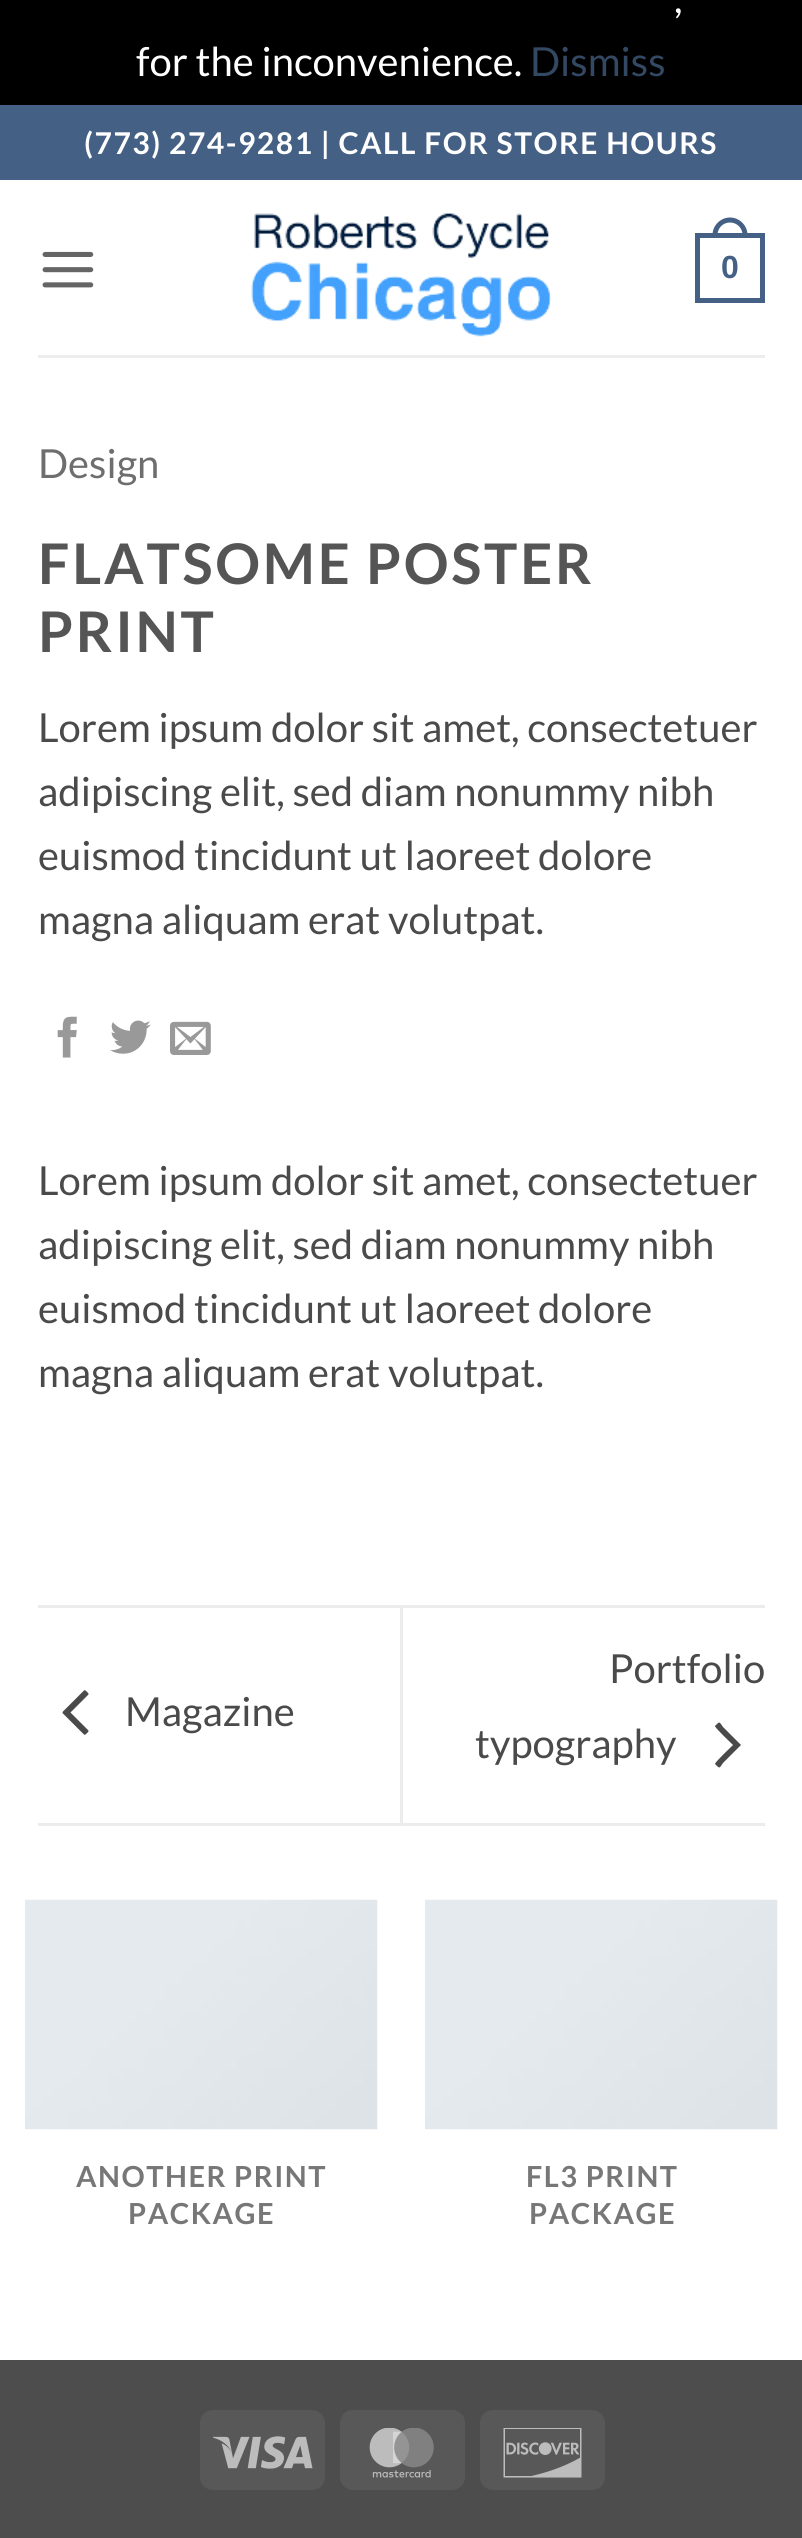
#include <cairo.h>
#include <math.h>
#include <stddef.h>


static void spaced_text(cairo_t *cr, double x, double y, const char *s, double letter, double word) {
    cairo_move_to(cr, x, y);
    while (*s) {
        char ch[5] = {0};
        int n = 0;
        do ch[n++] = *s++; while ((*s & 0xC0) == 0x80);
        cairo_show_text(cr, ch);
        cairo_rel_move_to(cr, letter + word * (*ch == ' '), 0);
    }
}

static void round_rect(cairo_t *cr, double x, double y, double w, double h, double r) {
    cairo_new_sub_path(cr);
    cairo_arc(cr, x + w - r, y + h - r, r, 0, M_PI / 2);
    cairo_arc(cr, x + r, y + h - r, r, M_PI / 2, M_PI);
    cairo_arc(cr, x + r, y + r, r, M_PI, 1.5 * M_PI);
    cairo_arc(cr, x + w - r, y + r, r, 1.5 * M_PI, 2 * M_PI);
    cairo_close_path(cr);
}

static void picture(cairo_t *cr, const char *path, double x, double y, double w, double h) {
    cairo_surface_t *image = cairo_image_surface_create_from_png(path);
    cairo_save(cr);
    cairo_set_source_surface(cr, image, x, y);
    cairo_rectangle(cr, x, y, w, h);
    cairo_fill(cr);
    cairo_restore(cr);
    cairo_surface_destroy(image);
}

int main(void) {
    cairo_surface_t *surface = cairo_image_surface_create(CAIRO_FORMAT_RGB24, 802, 2538);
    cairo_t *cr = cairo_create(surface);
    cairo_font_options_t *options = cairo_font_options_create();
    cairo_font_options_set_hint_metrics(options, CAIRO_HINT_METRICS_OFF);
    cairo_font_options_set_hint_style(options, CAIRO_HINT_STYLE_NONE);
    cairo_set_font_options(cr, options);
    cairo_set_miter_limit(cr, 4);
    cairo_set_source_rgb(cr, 0, 0, 0);
    cairo_paint(cr);
    cairo_select_font_face(cr, "Lato", CAIRO_FONT_SLANT_NORMAL, CAIRO_FONT_WEIGHT_NORMAL);
    cairo_set_font_size(cr, 40);
    cairo_set_source_rgb(cr, 1, 1, 1);
    cairo_move_to(cr, 674, 13);
    cairo_show_text(cr, ",");
    cairo_move_to(cr, 136, 76);
    cairo_show_text(cr, "for the inconvenience.");
    cairo_set_source_rgb(cr, 0.2, 0.282, 0.384);
    cairo_move_to(cr, 530, 76);
    cairo_show_text(cr, "Dismiss");
    cairo_set_source_rgb(cr, 1, 1, 1);
    cairo_rectangle(cr, 0, 180, 802, 2180);
    cairo_fill(cr);
    cairo_set_source_rgb(cr, 0.267, 0.376, 0.518);
    cairo_rectangle(cr, 0, 105, 802, 75);
    cairo_fill(cr);
    cairo_select_font_face(cr, "Lato", CAIRO_FONT_SLANT_NORMAL, CAIRO_FONT_WEIGHT_BOLD);
    cairo_set_font_size(cr, 30);
    cairo_set_source_rgb(cr, 1, 1, 1);
    spaced_text(cr, 84, 154, "(773) 274-9281 | CALL FOR STORE HOURS", 1.5, 0);
    picture(cr, "img1.png", 42, 251, 52, 37);
    picture(cr, "img2.png", 251, 213, 301, 124);
    cairo_rectangle(cr, 697.5, 235.5, 65, 65);
    cairo_set_source_rgb(cr, 0.267, 0.376, 0.518);
    cairo_set_line_width(cr, 5);
    cairo_stroke(cr);
    cairo_set_fill_rule(cr, CAIRO_FILL_RULE_EVEN_ODD);
    cairo_new_path(cr);
    cairo_move_to(cr, 730, 217.5);
    cairo_curve_to(cr, 739.5, 217.5, 747.5, 225.5, 747.5, 235);
    cairo_line_to(cr, 747.5, 237.5);
    cairo_line_to(cr, 712.5, 237.5);
    cairo_line_to(cr, 712.5, 235);
    cairo_curve_to(cr, 712.5, 225.5, 720.5, 217.5, 730, 217.5);
    cairo_close_path(cr);
    cairo_move_to(cr, 730, 222.5);
    cairo_curve_to(cr, 737, 222.5, 742.5, 228, 742.5, 235);
    cairo_line_to(cr, 742.5, 237.5);
    cairo_line_to(cr, 717.5, 237.5);
    cairo_line_to(cr, 717.5, 235);
    cairo_curve_to(cr, 717.5, 228, 723, 222.5, 730, 222.5);
    cairo_close_path(cr);
    cairo_fill(cr);
    cairo_select_font_face(cr, "Liberation Sans", CAIRO_FONT_SLANT_NORMAL, CAIRO_FONT_WEIGHT_BOLD);
    cairo_set_font_size(cr, 32);
    cairo_move_to(cr, 721, 278);
    cairo_show_text(cr, "0");
    cairo_set_source_rgb(cr, 0.929, 0.929, 0.929);
    cairo_rectangle(cr, 38, 355, 727, 3);
    cairo_fill(cr);
    cairo_select_font_face(cr, "Lato", CAIRO_FONT_SLANT_NORMAL, CAIRO_FONT_WEIGHT_NORMAL);
    cairo_set_font_size(cr, 40);
    cairo_set_source_rgb(cr, 0.431, 0.431, 0.431);
    cairo_move_to(cr, 38, 478);
    cairo_show_text(cr, "Design");
    cairo_select_font_face(cr, "Lato", CAIRO_FONT_SLANT_NORMAL, CAIRO_FONT_WEIGHT_BOLD);
    cairo_set_font_size(cr, 56);
    cairo_set_source_rgb(cr, 0.333, 0.333, 0.333);
    spaced_text(cr, 38, 584, "FLATSOME POSTER", 2.75, 0);
    spaced_text(cr, 38, 652, "PRINT", 2.75, 0);
    cairo_select_font_face(cr, "Lato", CAIRO_FONT_SLANT_NORMAL, CAIRO_FONT_WEIGHT_NORMAL);
    cairo_set_font_size(cr, 40);
    cairo_set_source_rgb(cr, 0.29, 0.29, 0.29);
    cairo_move_to(cr, 38, 742);
    cairo_show_text(cr, "Lorem ipsum dolor sit amet, consectetuer");
    cairo_move_to(cr, 38, 806);
    cairo_show_text(cr, "adipiscing elit, sed diam nonummy nibh");
    cairo_move_to(cr, 38, 870);
    cairo_show_text(cr, "euismod tincidunt ut laoreet dolore");
    cairo_move_to(cr, 38, 934);
    cairo_show_text(cr, "magna aliquam erat volutpat.");
    picture(cr, "img3.png", 57, 1016, 20, 42);
    picture(cr, "img4.png", 110, 1020, 41, 34);
    picture(cr, "img5.png", 170, 1021, 41, 34);
    cairo_move_to(cr, 38, 1195);
    cairo_show_text(cr, "Lorem ipsum dolor sit amet, consectetuer");
    cairo_move_to(cr, 38, 1259);
    cairo_show_text(cr, "adipiscing elit, sed diam nonummy nibh");
    cairo_move_to(cr, 38, 1323);
    cairo_show_text(cr, "euismod tincidunt ut laoreet dolore");
    cairo_move_to(cr, 38, 1387);
    cairo_show_text(cr, "magna aliquam erat volutpat.");
    cairo_set_source_rgb(cr, 0.925, 0.925, 0.925);
    cairo_rectangle(cr, 38, 1605, 727, 3);
    cairo_fill(cr);
    cairo_rectangle(cr, 38, 1823, 727, 3);
    cairo_fill(cr);
    picture(cr, "img6.png", 62, 1690, 27, 45);
    cairo_set_source_rgb(cr, 0.29, 0.29, 0.29);
    cairo_move_to(cr, 125, 1726);
    cairo_show_text(cr, "Magazine");
    cairo_set_source_rgb(cr, 0.925, 0.925, 0.925);
    cairo_rectangle(cr, 400, 1608, 3, 215);
    cairo_fill(cr);
    cairo_set_source_rgb(cr, 0.29, 0.29, 0.29);
    cairo_move_to(cr, 609, 1683);
    cairo_show_text(cr, "Portfolio");
    cairo_move_to(cr, 475, 1758);
    cairo_show_text(cr, "typography");
    cairo_set_fill_rule(cr, CAIRO_FILL_RULE_WINDING);
    cairo_new_path(cr);
    cairo_move_to(cr, 741, 1745);
    cairo_line_to(cr, 723, 1763);
    cairo_curve_to(cr, 720, 1767, 720, 1769, 717, 1766);
    cairo_line_to(cr, 715, 1764);
    cairo_curve_to(cr, 715, 1762, 731, 1747, 733, 1745);
    cairo_curve_to(cr, 731, 1743, 715, 1728, 715, 1726);
    cairo_line_to(cr, 717, 1724);
    cairo_curve_to(cr, 720, 1721, 720, 1723, 723, 1727);
    cairo_close_path(cr);
    cairo_fill(cr);
    picture(cr, "img7.png", 25, 1899, 353, 231);
    cairo_select_font_face(cr, "Lato", CAIRO_FONT_SLANT_NORMAL, CAIRO_FONT_WEIGHT_BOLD);
    cairo_set_font_size(cr, 29);
    cairo_set_source_rgb(cr, 0.467, 0.467, 0.467);
    spaced_text(cr, 76, 2187, "ANOTHER PRINT", 1.5, 0);
    spaced_text(cr, 128, 2224, "PACKAGE", 1.5, 0);
    picture(cr, "img7.png", 425, 1899, 353, 231);
    spaced_text(cr, 526, 2187, "FL3 PRINT", 1.5, 0);
    spaced_text(cr, 529, 2224, "PACKAGE", 1.5, 0);
    cairo_set_source_rgb(cr, 0.302, 0.302, 0.302);
    cairo_rectangle(cr, 0, 2360, 802, 178);
    cairo_fill(cr);
    cairo_set_source_rgb(cr, 0.345, 0.345, 0.345);
    round_rect(cr, 200, 2410, 125, 80, 13);
    cairo_fill(cr);
    picture(cr, "img8.png", 213, 2436, 100, 33);
    round_rect(cr, 340, 2410, 125, 80, 13);
    cairo_fill(cr);
    picture(cr, "img9.png", 369, 2428, 65, 50);
    round_rect(cr, 480, 2410, 125, 80, 13);
    cairo_fill(cr);
    picture(cr, "img10.png", 503, 2428, 79, 50);
    cairo_surface_write_to_png(surface, "page.png");
    cairo_font_options_destroy(options);
    cairo_destroy(cr);
    cairo_surface_destroy(surface);
    return 0;
}
